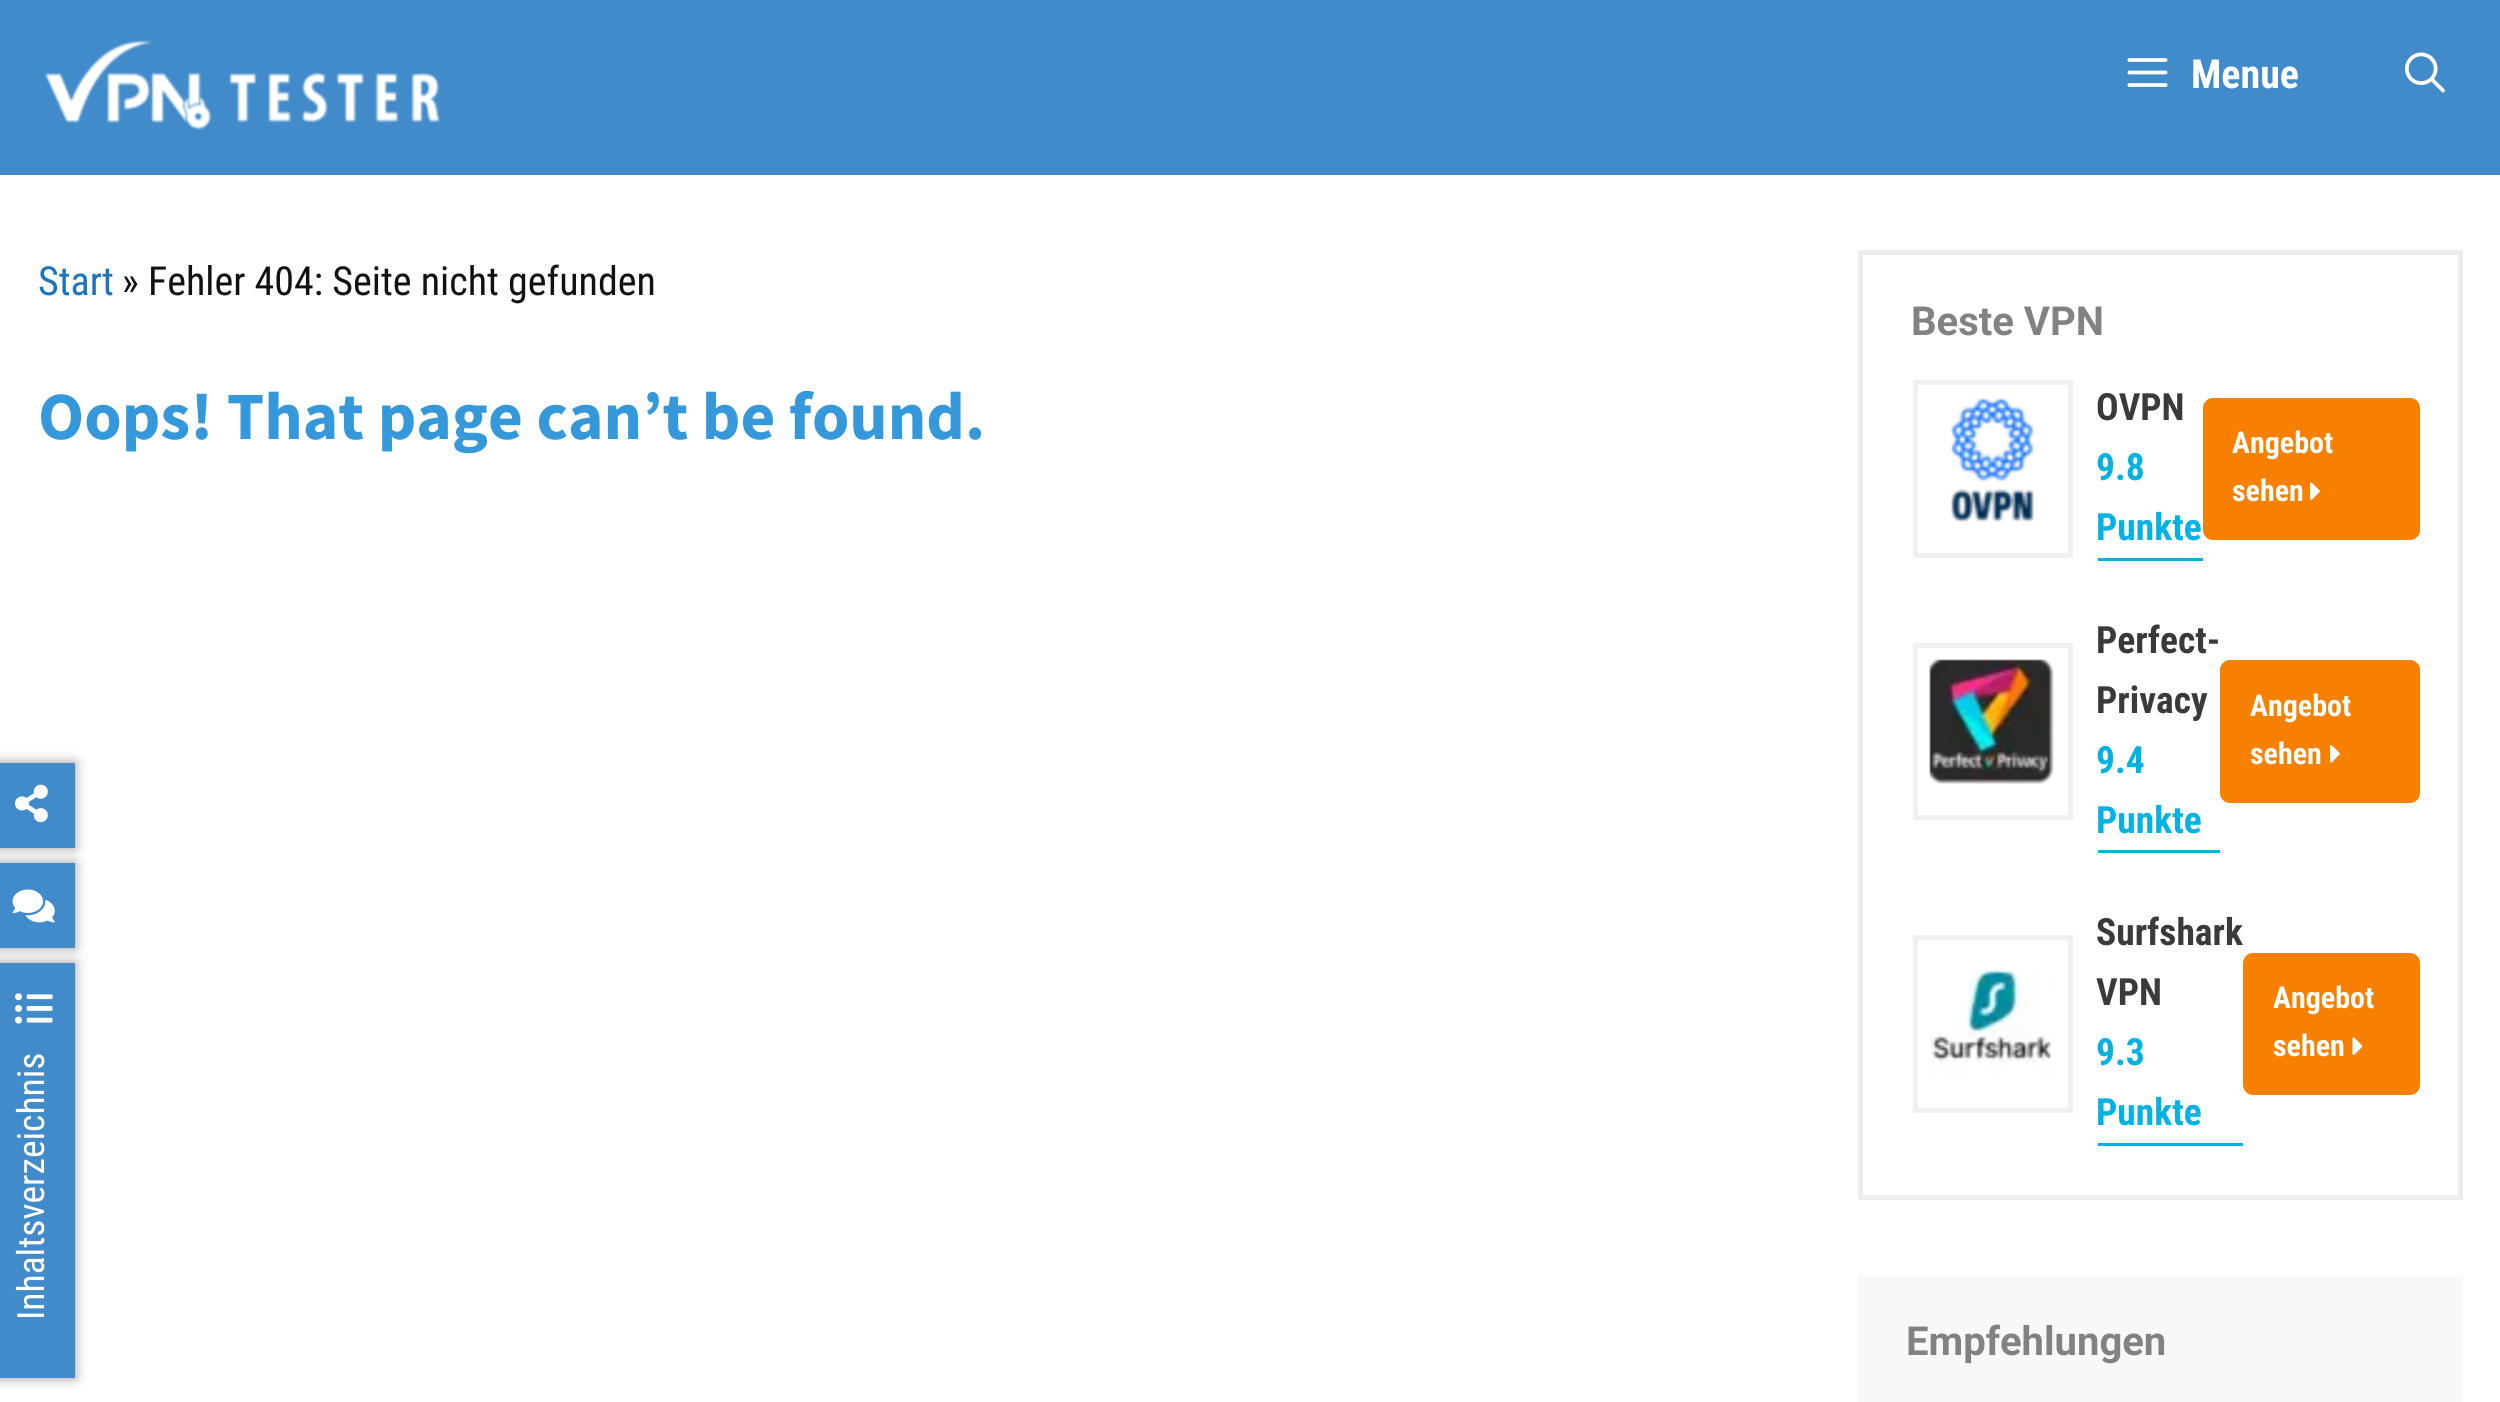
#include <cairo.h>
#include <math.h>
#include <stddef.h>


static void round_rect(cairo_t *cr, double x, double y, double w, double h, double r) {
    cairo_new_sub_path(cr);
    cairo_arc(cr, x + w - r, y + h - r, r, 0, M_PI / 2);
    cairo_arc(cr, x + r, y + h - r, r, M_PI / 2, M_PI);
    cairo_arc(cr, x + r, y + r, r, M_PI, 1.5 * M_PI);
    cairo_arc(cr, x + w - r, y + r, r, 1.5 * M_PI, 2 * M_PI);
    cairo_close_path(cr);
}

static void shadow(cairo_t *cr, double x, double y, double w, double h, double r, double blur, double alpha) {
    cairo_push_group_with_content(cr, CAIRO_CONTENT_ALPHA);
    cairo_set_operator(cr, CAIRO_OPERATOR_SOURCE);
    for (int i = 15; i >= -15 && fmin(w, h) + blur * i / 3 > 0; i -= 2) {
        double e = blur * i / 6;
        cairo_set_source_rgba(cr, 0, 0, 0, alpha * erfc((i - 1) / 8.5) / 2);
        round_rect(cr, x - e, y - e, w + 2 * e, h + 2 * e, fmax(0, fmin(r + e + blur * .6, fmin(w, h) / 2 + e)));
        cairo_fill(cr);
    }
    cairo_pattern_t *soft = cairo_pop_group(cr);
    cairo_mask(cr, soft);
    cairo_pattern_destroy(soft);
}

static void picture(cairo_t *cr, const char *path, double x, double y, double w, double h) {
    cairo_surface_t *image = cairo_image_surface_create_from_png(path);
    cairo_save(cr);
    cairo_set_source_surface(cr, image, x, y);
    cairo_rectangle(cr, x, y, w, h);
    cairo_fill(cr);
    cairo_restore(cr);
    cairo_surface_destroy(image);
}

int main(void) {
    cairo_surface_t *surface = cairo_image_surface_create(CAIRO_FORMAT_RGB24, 2500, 1402);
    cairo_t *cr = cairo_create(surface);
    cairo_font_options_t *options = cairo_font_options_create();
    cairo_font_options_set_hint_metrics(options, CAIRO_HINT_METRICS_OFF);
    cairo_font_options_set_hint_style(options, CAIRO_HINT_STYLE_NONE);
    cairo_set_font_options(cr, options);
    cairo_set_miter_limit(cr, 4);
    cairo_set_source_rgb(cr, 1, 1, 1);
    cairo_paint(cr);
    cairo_set_source_rgb(cr, 0.259, 0.545, 0.792);
    cairo_rectangle(cr, 0, 0, 2500, 175);
    cairo_fill(cr);
    picture(cr, "img1.png", 44, 40, 397, 90);
    picture(cr, "img2.png", 2127, 58, 41, 29);
    cairo_select_font_face(cr, "Roboto Condensed", CAIRO_FONT_SLANT_NORMAL, CAIRO_FONT_WEIGHT_BOLD);
    cairo_set_font_size(cr, 40);
    cairo_set_source_rgb(cr, 1, 1, 1);
    cairo_move_to(cr, 2191, 88);
    cairo_show_text(cr, "Menue");
    picture(cr, "img3.png", 2405, 52, 40, 41);
    cairo_set_source_rgb(cr, 0.6, 0.6, 0.6);
    shadow(cr, -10, 863, 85, 85, 0, 6, 1);
    cairo_set_source_rgb(cr, 0.259, 0.545, 0.792);
    cairo_rectangle(cr, 0, 863, 75, 85);
    cairo_fill(cr);
    cairo_set_source_rgb(cr, 0.6, 0.6, 0.6);
    shadow(cr, -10, 763, 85, 85, 0, 6, 1);
    cairo_set_source_rgb(cr, 0.259, 0.545, 0.792);
    cairo_rectangle(cr, 0, 763, 75, 85);
    cairo_fill(cr);
    picture(cr, "img4.png", 15, 784, 33, 39);
    picture(cr, "img5.png", 12, 889, 43, 34);
    cairo_set_source_rgb(cr, 0.6, 0.6, 0.6);
    shadow(cr, -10, 963, 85, 415, 0, 6, 1);
    cairo_set_source_rgb(cr, 0.259, 0.545, 0.792);
    cairo_rectangle(cr, 0, 963, 75, 415);
    cairo_fill(cr);
    picture(cr, "img6.png", 15, 993, 38, 31);
    cairo_select_font_face(cr, "Roboto Condensed", CAIRO_FONT_SLANT_NORMAL, CAIRO_FONT_WEIGHT_NORMAL);
    cairo_set_font_size(cr, 37.5);
    cairo_set_source_rgb(cr, 1, 1, 1);
    cairo_save(cr);
    cairo_translate(cr, 44, 1320);
    cairo_rotate(cr, -90 * M_PI / 180);
    cairo_move_to(cr, 0, 0);
    cairo_show_text(cr, "Inhaltsverzeichnis");
    cairo_restore(cr);
    cairo_set_font_size(cr, 40);
    cairo_set_source_rgb(cr, 0.118, 0.451, 0.745);
    cairo_move_to(cr, 38, 295);
    cairo_show_text(cr, "Start");
    cairo_set_source_rgb(cr, 0.067, 0.067, 0.067);
    cairo_move_to(cr, 122, 295);
    cairo_show_text(cr, "» Fehler 404: Seite nicht gefunden");
    cairo_select_font_face(cr, "Source Sans Pro", CAIRO_FONT_SLANT_NORMAL, CAIRO_FONT_WEIGHT_BOLD);
    cairo_set_font_size(cr, 67.5);
    cairo_set_source_rgb(cr, 0.204, 0.596, 0.859);
    cairo_move_to(cr, 38, 439);
    cairo_show_text(cr, "Oops! That page can’t be found.");
    cairo_rectangle(cr, 1860.5, 252.5, 600, 945);
    cairo_set_source_rgb(cr, 0.929, 0.929, 0.929);
    cairo_set_line_width(cr, 5);
    cairo_stroke(cr);
    cairo_select_font_face(cr, "Roboto", CAIRO_FONT_SLANT_NORMAL, CAIRO_FONT_WEIGHT_BOLD);
    cairo_set_font_size(cr, 40);
    cairo_set_source_rgb(cr, 0.51, 0.51, 0.51);
    cairo_move_to(cr, 1911, 335);
    cairo_show_text(cr, "Beste VPN");
    cairo_rectangle(cr, 1915.5, 382.5, 155, 173);
    cairo_set_source_rgb(cr, 0.941, 0.941, 0.941);
    cairo_stroke(cr);
    picture(cr, "img7.png", 1950, 398, 84, 124);
    cairo_select_font_face(cr, "Roboto Condensed", CAIRO_FONT_SLANT_NORMAL, CAIRO_FONT_WEIGHT_BOLD);
    cairo_set_font_size(cr, 37.5);
    cairo_set_source_rgb(cr, 0.227, 0.227, 0.227);
    cairo_move_to(cr, 2096, 420);
    cairo_show_text(cr, "OVPN");
    cairo_set_source_rgb(cr, 0.004, 0.698, 0.886);
    cairo_rectangle(cr, 2098, 558, 105, 3);
    cairo_fill(cr);
    cairo_move_to(cr, 2096, 480);
    cairo_show_text(cr, "9.8");
    cairo_move_to(cr, 2096, 540);
    cairo_show_text(cr, "Punkte");
    cairo_set_source_rgb(cr, 0.965, 0.502, 0);
    round_rect(cr, 2205.5, 400.5, 212, 137, 7.5);
    cairo_fill_preserve(cr);
    cairo_stroke(cr);
    cairo_set_font_size(cr, 30);
    cairo_set_source_rgb(cr, 1, 1, 1);
    cairo_move_to(cr, 2232, 453);
    cairo_show_text(cr, "Angebot");
    cairo_move_to(cr, 2232, 501);
    cairo_show_text(cr, "sehen");
    picture(cr, "img8.png", 2310, 482, 10, 18);
    cairo_rectangle(cr, 1915.5, 645.5, 155, 172);
    cairo_set_source_rgb(cr, 0.941, 0.941, 0.941);
    cairo_stroke(cr);
    picture(cr, "img9.png", 1929, 659, 125, 125);
    cairo_set_font_size(cr, 37.5);
    cairo_set_source_rgb(cr, 0.227, 0.227, 0.227);
    cairo_move_to(cr, 2096, 653);
    cairo_show_text(cr, "Perfect-");
    cairo_move_to(cr, 2096, 713);
    cairo_show_text(cr, "Privacy");
    cairo_set_source_rgb(cr, 0.004, 0.698, 0.886);
    cairo_rectangle(cr, 2098, 850, 122, 3);
    cairo_fill(cr);
    cairo_move_to(cr, 2096, 773);
    cairo_show_text(cr, "9.4");
    cairo_move_to(cr, 2096, 833);
    cairo_show_text(cr, "Punkte");
    cairo_set_source_rgb(cr, 0.965, 0.502, 0);
    round_rect(cr, 2222.5, 662.5, 195, 138, 7.5);
    cairo_fill_preserve(cr);
    cairo_stroke(cr);
    cairo_set_font_size(cr, 30);
    cairo_set_source_rgb(cr, 1, 1, 1);
    cairo_move_to(cr, 2250, 716);
    cairo_show_text(cr, "Angebot");
    cairo_move_to(cr, 2250, 764);
    cairo_show_text(cr, "sehen");
    picture(cr, "img10.png", 2330, 745, 10, 18);
    cairo_rectangle(cr, 1915.5, 937.5, 155, 173);
    cairo_set_source_rgb(cr, 0.941, 0.941, 0.941);
    cairo_stroke(cr);
    picture(cr, "img11.png", 1930, 969, 122, 106);
    cairo_set_font_size(cr, 37.5);
    cairo_set_source_rgb(cr, 0.227, 0.227, 0.227);
    cairo_move_to(cr, 2096, 945);
    cairo_show_text(cr, "Surfshark");
    cairo_move_to(cr, 2096, 1005);
    cairo_show_text(cr, "VPN");
    cairo_set_source_rgb(cr, 0.004, 0.698, 0.886);
    cairo_rectangle(cr, 2098, 1143, 145, 3);
    cairo_fill(cr);
    cairo_move_to(cr, 2096, 1065);
    cairo_show_text(cr, "9.3");
    cairo_move_to(cr, 2096, 1125);
    cairo_show_text(cr, "Punkte");
    cairo_set_source_rgb(cr, 0.965, 0.502, 0);
    round_rect(cr, 2245.5, 955.5, 172, 137, 7.5);
    cairo_fill_preserve(cr);
    cairo_stroke(cr);
    cairo_set_font_size(cr, 30);
    cairo_set_source_rgb(cr, 1, 1, 1);
    cairo_move_to(cr, 2273, 1008);
    cairo_show_text(cr, "Angebot");
    cairo_move_to(cr, 2273, 1056);
    cairo_show_text(cr, "sehen");
    picture(cr, "img12.png", 2352, 1037, 11, 18);
    cairo_set_source_rgb(cr, 0.969, 0.969, 0.969);
    cairo_rectangle(cr, 1858, 1275, 605, 127);
    cairo_fill(cr);
    cairo_select_font_face(cr, "Roboto", CAIRO_FONT_SLANT_NORMAL, CAIRO_FONT_WEIGHT_BOLD);
    cairo_set_font_size(cr, 40);
    cairo_set_source_rgb(cr, 0.51, 0.51, 0.51);
    cairo_move_to(cr, 1906, 1355);
    cairo_show_text(cr, "Empfehlungen");
    cairo_surface_write_to_png(surface, "page.png");
    cairo_font_options_destroy(options);
    cairo_destroy(cr);
    cairo_surface_destroy(surface);
    return 0;
}
